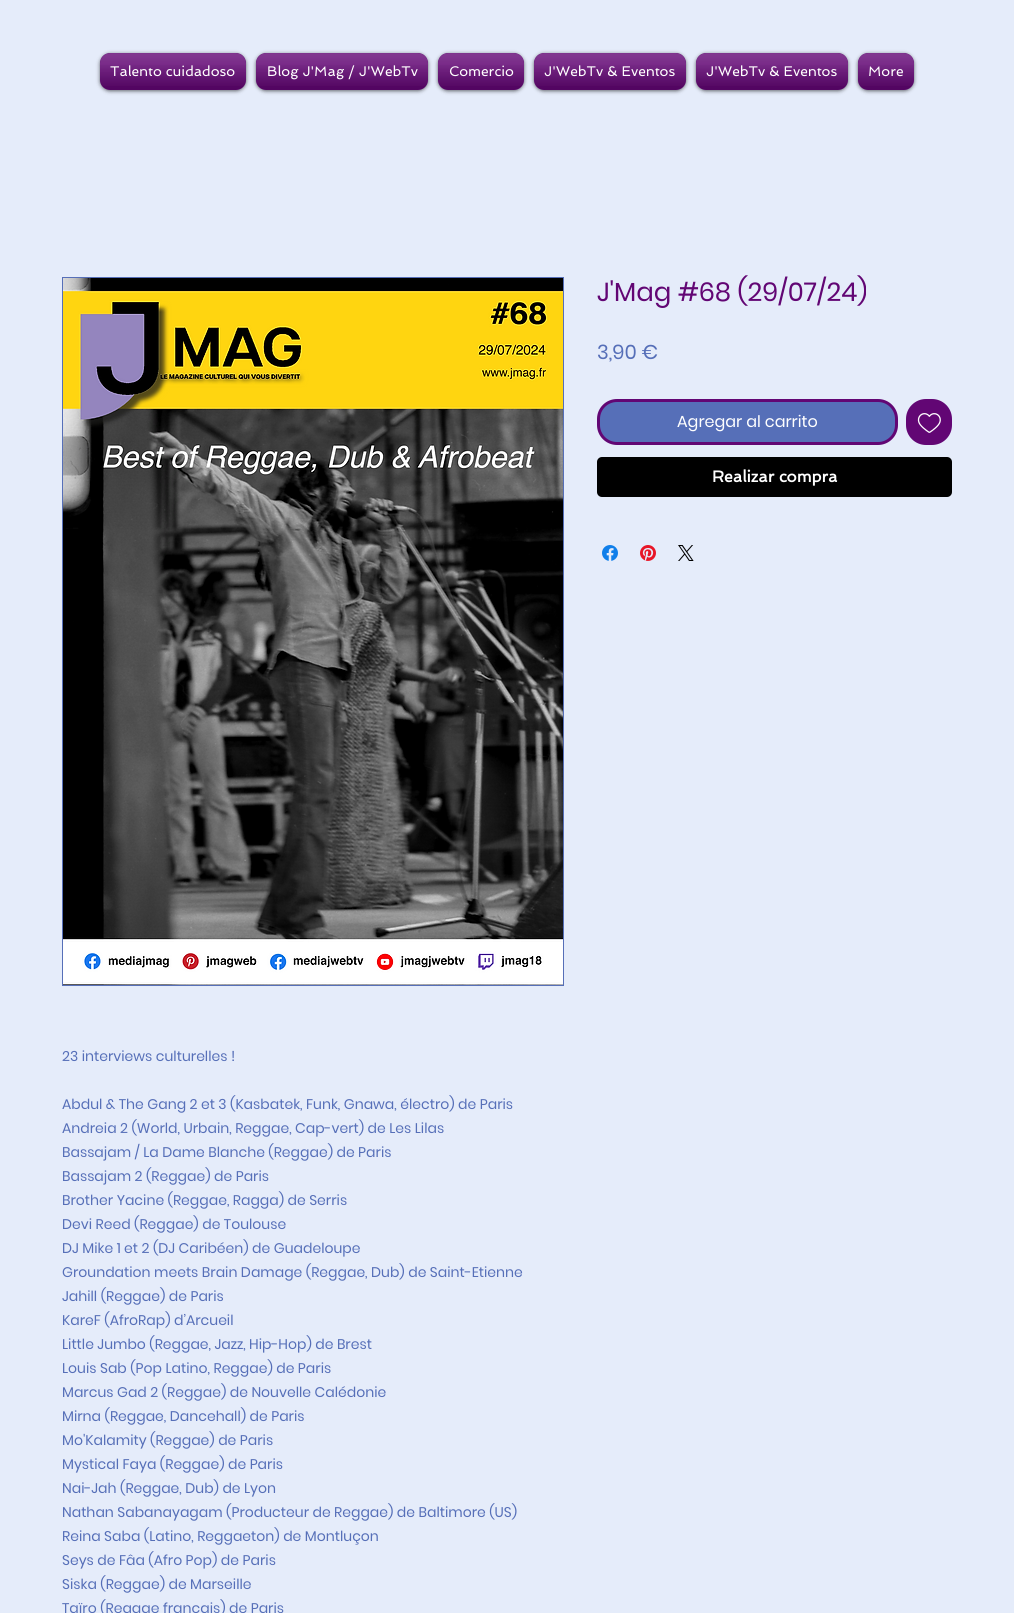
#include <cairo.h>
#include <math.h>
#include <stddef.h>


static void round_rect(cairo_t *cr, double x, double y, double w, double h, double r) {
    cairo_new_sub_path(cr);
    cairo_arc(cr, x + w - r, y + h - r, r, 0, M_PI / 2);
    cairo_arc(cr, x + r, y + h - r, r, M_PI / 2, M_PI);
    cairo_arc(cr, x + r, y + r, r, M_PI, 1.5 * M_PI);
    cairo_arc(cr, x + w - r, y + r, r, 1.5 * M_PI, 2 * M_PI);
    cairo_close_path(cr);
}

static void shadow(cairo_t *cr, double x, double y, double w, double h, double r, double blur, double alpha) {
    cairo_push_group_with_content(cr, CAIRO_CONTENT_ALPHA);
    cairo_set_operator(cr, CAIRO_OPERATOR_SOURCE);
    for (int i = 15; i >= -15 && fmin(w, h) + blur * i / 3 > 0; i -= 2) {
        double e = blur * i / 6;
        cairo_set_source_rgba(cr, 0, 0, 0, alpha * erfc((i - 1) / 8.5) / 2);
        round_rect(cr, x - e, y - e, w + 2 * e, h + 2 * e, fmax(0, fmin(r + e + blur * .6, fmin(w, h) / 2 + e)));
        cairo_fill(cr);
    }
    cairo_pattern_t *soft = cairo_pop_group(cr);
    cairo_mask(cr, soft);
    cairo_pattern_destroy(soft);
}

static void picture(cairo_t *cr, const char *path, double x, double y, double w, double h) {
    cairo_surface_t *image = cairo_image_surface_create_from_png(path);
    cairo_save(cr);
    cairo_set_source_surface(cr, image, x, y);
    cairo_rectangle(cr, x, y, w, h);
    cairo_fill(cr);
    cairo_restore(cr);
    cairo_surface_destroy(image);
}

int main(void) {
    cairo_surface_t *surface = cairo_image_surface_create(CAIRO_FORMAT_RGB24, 1014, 1613);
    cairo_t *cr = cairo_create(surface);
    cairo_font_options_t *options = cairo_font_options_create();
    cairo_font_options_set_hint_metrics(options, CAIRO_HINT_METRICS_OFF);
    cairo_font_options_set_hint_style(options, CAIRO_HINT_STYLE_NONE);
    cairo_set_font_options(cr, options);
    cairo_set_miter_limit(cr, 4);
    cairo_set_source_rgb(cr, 0.898, 0.922, 0.98);
    cairo_paint(cr);
    cairo_set_source_rgb(cr, 0, 0, 0);
    shadow(cr, 100, 54, 146, 37, 10, 2, 0.6);
    cairo_set_source_rgb(cr, 0.384, 0.024, 0.455);
    round_rect(cr, 100, 53, 146, 37, 10);
    cairo_fill(cr);
    picture(cr, "img1.png", 100, 53, 146, 33);
    picture(cr, "img2.png", 100, 65, 146, 25);
    cairo_select_font_face(cr, "Spinnaker", CAIRO_FONT_SLANT_NORMAL, CAIRO_FONT_WEIGHT_NORMAL);
    cairo_set_font_size(cr, 14);
    cairo_set_source_rgb(cr, 1, 1, 1);
    cairo_move_to(cr, 110, 76);
    cairo_show_text(cr, "Talento cuidadoso");
    cairo_set_source_rgb(cr, 0, 0, 0);
    shadow(cr, 256, 54, 172, 37, 10, 2, 0.6);
    cairo_set_source_rgb(cr, 0.384, 0.024, 0.455);
    round_rect(cr, 256, 53, 172, 37, 10);
    cairo_fill(cr);
    picture(cr, "img3.png", 256, 53, 172, 33);
    picture(cr, "img4.png", 256, 65, 172, 25);
    cairo_set_source_rgb(cr, 1, 1, 1);
    cairo_move_to(cr, 267, 76);
    cairo_show_text(cr, "Blog J'Mag / J'WebTv");
    cairo_set_source_rgb(cr, 0, 0, 0);
    shadow(cr, 438, 54, 86, 37, 10, 2, 0.6);
    cairo_set_source_rgb(cr, 0.384, 0.024, 0.455);
    round_rect(cr, 438, 53, 86, 37, 10);
    cairo_fill(cr);
    picture(cr, "img5.png", 438, 53, 86, 33);
    picture(cr, "img6.png", 438, 65, 86, 25);
    cairo_set_source_rgb(cr, 1, 1, 1);
    cairo_move_to(cr, 449, 76);
    cairo_show_text(cr, "Comercio");
    cairo_set_source_rgb(cr, 0, 0, 0);
    shadow(cr, 534, 54, 152, 37, 10, 2, 0.6);
    cairo_set_source_rgb(cr, 0.384, 0.024, 0.455);
    round_rect(cr, 534, 53, 152, 37, 10);
    cairo_fill(cr);
    picture(cr, "img7.png", 534, 53, 152, 33);
    picture(cr, "img8.png", 534, 65, 152, 25);
    cairo_set_source_rgb(cr, 1, 1, 1);
    cairo_move_to(cr, 544, 76);
    cairo_show_text(cr, "J'WebTv & Eventos");
    cairo_set_source_rgb(cr, 0, 0, 0);
    shadow(cr, 696, 54, 152, 37, 10, 2, 0.6);
    cairo_set_source_rgb(cr, 0.384, 0.024, 0.455);
    round_rect(cr, 696, 53, 152, 37, 10);
    cairo_fill(cr);
    picture(cr, "img7.png", 696, 53, 152, 33);
    picture(cr, "img8.png", 696, 65, 152, 25);
    cairo_set_source_rgb(cr, 1, 1, 1);
    cairo_move_to(cr, 706, 76);
    cairo_show_text(cr, "J'WebTv & Eventos");
    cairo_set_source_rgb(cr, 0, 0, 0);
    shadow(cr, 858, 54, 56, 37, 10, 2, 0.6);
    cairo_set_source_rgb(cr, 0.384, 0.024, 0.455);
    round_rect(cr, 858, 53, 56, 37, 10);
    cairo_fill(cr);
    picture(cr, "img9.png", 858, 53, 56, 33);
    picture(cr, "img10.png", 858, 65, 56, 25);
    cairo_set_source_rgb(cr, 1, 1, 1);
    cairo_move_to(cr, 868, 76);
    cairo_show_text(cr, "More");
    cairo_select_font_face(cr, "Poppins", CAIRO_FONT_SLANT_NORMAL, CAIRO_FONT_WEIGHT_NORMAL);
    cairo_set_font_size(cr, 26);
    cairo_set_source_rgb(cr, 0.384, 0.024, 0.455);
    cairo_move_to(cr, 597, 301);
    cairo_show_text(cr, "J'Mag #68 (29/07/24)");
    cairo_set_font_size(cr, 20);
    cairo_set_source_rgb(cr, 0.337, 0.435, 0.722);
    cairo_move_to(cr, 597, 359);
    cairo_show_text(cr, "3,90 €");
    round_rect(cr, 598.5, 400.5, 298, 43, 18.5);
    cairo_fill_preserve(cr);
    cairo_set_source_rgb(cr, 0.384, 0.024, 0.455);
    cairo_set_line_width(cr, 3);
    cairo_stroke(cr);
    cairo_set_font_size(cr, 16);
    cairo_set_source_rgb(cr, 1, 1, 1);
    cairo_move_to(cr, 677, 427);
    cairo_show_text(cr, "Agregar al carrito");
    cairo_set_source_rgb(cr, 0.384, 0.024, 0.455);
    round_rect(cr, 906, 399, 46, 46, 20);
    cairo_fill(cr);
    picture(cr, "img11.png", 917, 413, 24, 20);
    cairo_set_source_rgb(cr, 0, 0, 0);
    round_rect(cr, 597, 457, 355, 40, 5);
    cairo_fill(cr);
    cairo_select_font_face(cr, "Spinnaker", CAIRO_FONT_SLANT_NORMAL, CAIRO_FONT_WEIGHT_BOLD);
    cairo_set_source_rgb(cr, 1, 1, 1);
    cairo_move_to(cr, 712, 482);
    cairo_show_text(cr, "Realizar compra");
    picture(cr, "img12.png", 602, 545, 16, 16);
    picture(cr, "img13.png", 640, 545, 16, 16);
    picture(cr, "img14.png", 678, 545, 16, 16);
    cairo_rectangle(cr, 62.5, 277.5, 501, 708);
    cairo_set_source_rgb(cr, 0.337, 0.435, 0.722);
    cairo_set_line_width(cr, 1);
    cairo_stroke(cr);
    picture(cr, "img15.png", 63, 278, 500, 707);
    cairo_select_font_face(cr, "Poppins", CAIRO_FONT_SLANT_NORMAL, CAIRO_FONT_WEIGHT_NORMAL);
    cairo_set_font_size(cr, 14);
    cairo_move_to(cr, 62, 1061);
    cairo_show_text(cr, "23 interviews culturelles !");
    cairo_move_to(cr, 62, 1109);
    cairo_show_text(cr, "Abdul & The Gang 2 et 3 (Kasbatek, Funk, Gnawa, électro) de Paris");
    cairo_move_to(cr, 62, 1133);
    cairo_show_text(cr, "Andreia 2 (World, Urbain, Reggae, Cap-vert) de Les Lilas");
    cairo_move_to(cr, 62, 1157);
    cairo_show_text(cr, "Bassajam / La Dame Blanche (Reggae) de Paris");
    cairo_move_to(cr, 62, 1181);
    cairo_show_text(cr, "Bassajam 2 (Reggae) de Paris");
    cairo_move_to(cr, 62, 1205);
    cairo_show_text(cr, "Brother Yacine (Reggae, Ragga) de Serris");
    cairo_move_to(cr, 62, 1229);
    cairo_show_text(cr, "Devi Reed (Reggae) de Toulouse");
    cairo_move_to(cr, 62, 1253);
    cairo_show_text(cr, "DJ Mike 1 et 2 (DJ Caribéen) de Guadeloupe");
    cairo_move_to(cr, 62, 1277);
    cairo_show_text(cr, "Groundation meets Brain Damage (Reggae, Dub) de Saint-Etienne");
    cairo_move_to(cr, 62, 1301);
    cairo_show_text(cr, "Jahill (Reggae) de Paris");
    cairo_move_to(cr, 62, 1325);
    cairo_show_text(cr, "KareF (AfroRap) d’Arcueil");
    cairo_move_to(cr, 62, 1349);
    cairo_show_text(cr, "Little Jumbo (Reggae, Jazz, Hip-Hop) de Brest");
    cairo_move_to(cr, 62, 1373);
    cairo_show_text(cr, "Louis Sab (Pop Latino, Reggae) de Paris");
    cairo_move_to(cr, 62, 1397);
    cairo_show_text(cr, "Marcus Gad 2 (Reggae) de Nouvelle Calédonie");
    cairo_move_to(cr, 62, 1421);
    cairo_show_text(cr, "Mirna (Reggae, Dancehall) de Paris");
    cairo_move_to(cr, 62, 1445);
    cairo_show_text(cr, "Mo'Kalamity (Reggae) de Paris");
    cairo_move_to(cr, 62, 1469);
    cairo_show_text(cr, "Mystical Faya (Reggae) de Paris");
    cairo_move_to(cr, 62, 1493);
    cairo_show_text(cr, "Nai-Jah (Reggae, Dub) de Lyon");
    cairo_move_to(cr, 62, 1517);
    cairo_show_text(cr, "Nathan Sabanayagam (Producteur de Reggae) de Baltimore (US)");
    cairo_move_to(cr, 62, 1541);
    cairo_show_text(cr, "Reina Saba (Latino, Reggaeton) de Montluçon");
    cairo_move_to(cr, 62, 1565);
    cairo_show_text(cr, "Seys de Fâa (Afro Pop) de Paris");
    cairo_move_to(cr, 62, 1589);
    cairo_show_text(cr, "Siska (Reggae) de Marseille");
    cairo_move_to(cr, 62, 1613);
    cairo_show_text(cr, "Taïro (Reggae français) de Paris");
    cairo_surface_write_to_png(surface, "page.png");
    cairo_font_options_destroy(options);
    cairo_destroy(cr);
    cairo_surface_destroy(surface);
    return 0;
}
